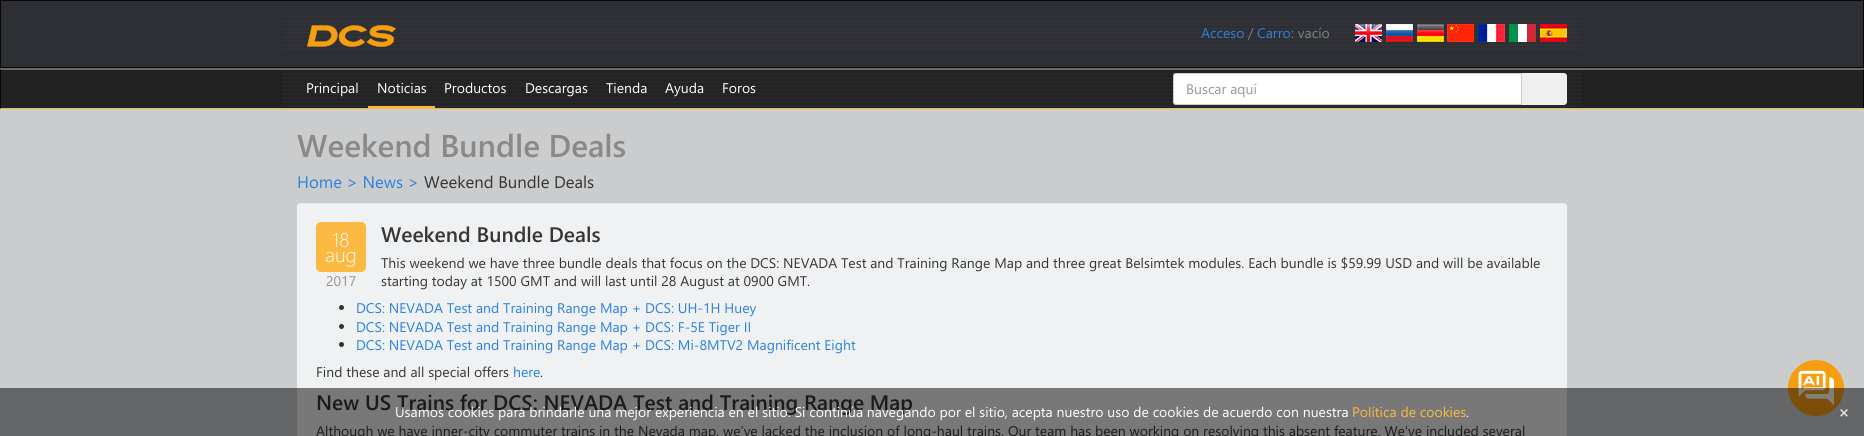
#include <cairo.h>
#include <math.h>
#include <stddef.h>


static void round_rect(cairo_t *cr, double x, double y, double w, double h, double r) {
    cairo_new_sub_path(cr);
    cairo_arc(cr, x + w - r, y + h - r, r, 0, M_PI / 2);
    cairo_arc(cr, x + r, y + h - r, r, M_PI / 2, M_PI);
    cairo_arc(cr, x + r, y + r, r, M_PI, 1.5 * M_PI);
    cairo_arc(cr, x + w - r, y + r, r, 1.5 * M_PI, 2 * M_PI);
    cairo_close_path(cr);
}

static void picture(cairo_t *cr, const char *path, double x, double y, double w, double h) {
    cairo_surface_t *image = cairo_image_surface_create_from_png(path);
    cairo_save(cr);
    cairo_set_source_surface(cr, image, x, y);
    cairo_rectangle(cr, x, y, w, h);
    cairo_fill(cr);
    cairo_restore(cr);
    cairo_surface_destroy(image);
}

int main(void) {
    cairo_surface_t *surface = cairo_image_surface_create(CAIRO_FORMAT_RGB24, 1864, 436);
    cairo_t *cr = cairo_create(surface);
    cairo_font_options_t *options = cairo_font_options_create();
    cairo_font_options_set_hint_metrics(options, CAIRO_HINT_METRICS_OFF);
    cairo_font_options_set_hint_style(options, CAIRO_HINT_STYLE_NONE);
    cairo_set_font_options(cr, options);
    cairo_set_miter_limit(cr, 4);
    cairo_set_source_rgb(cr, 0.792, 0.8, 0.808);
    cairo_paint(cr);
    cairo_set_source_rgb(cr, 0.18, 0.184, 0.204);
    cairo_rectangle(cr, 0.5, 0.5, 1863, 67);
    cairo_fill_preserve(cr);
    cairo_set_source_rgb(cr, 0.031, 0.031, 0.031);
    cairo_set_line_width(cr, 1);
    cairo_stroke(cr);
    picture(cr, "img1.png", 282, 13, 1300, 37);
    picture(cr, "img2.png", 307, 25, 89, 22);
    cairo_select_font_face(cr, "Segoe UI", CAIRO_FONT_SLANT_NORMAL, CAIRO_FONT_WEIGHT_NORMAL);
    cairo_set_font_size(cr, 14);
    cairo_set_source_rgb(cr, 0.169, 0.51, 0.863);
    cairo_move_to(cr, 1201, 38);
    cairo_show_text(cr, "Acceso");
    cairo_set_source_rgb(cr, 0.498, 0.506, 0.502);
    cairo_move_to(cr, 1248, 38);
    cairo_show_text(cr, "/");
    cairo_set_source_rgb(cr, 0.169, 0.51, 0.863);
    cairo_move_to(cr, 1257, 38);
    cairo_show_text(cr, "Carro");
    cairo_set_source_rgb(cr, 0.498, 0.506, 0.502);
    cairo_move_to(cr, 1291, 38);
    cairo_show_text(cr, ": vacío");
    picture(cr, "img3.png", 1355, 24, 27, 18);
    picture(cr, "img4.png", 1386, 24, 27, 18);
    picture(cr, "img5.png", 1417, 24, 27, 18);
    picture(cr, "img6.png", 1447, 24, 27, 18);
    picture(cr, "img7.png", 1478, 24, 27, 18);
    picture(cr, "img8.png", 1509, 24, 27, 18);
    picture(cr, "img9.png", 1540, 24, 27, 18);
    cairo_set_source_rgb(cr, 0.133, 0.133, 0.133);
    cairo_rectangle(cr, 1, 70, 1862, 38);
    cairo_fill(cr);
    cairo_set_source_rgb(cr, 0.416, 0.416, 0.416);
    cairo_new_path(cr);
    cairo_move_to(cr, 0, 68);
    cairo_line_to(cr, 1864, 68);
    cairo_line_to(cr, 1863, 70);
    cairo_line_to(cr, 1, 70);
    cairo_close_path(cr);
    cairo_fill(cr);
    cairo_set_source_rgb(cr, 0.031, 0.031, 0.031);
    cairo_new_path(cr);
    cairo_move_to(cr, 1864, 68);
    cairo_line_to(cr, 1864, 109);
    cairo_line_to(cr, 1863, 108);
    cairo_line_to(cr, 1863, 70);
    cairo_close_path(cr);
    cairo_fill(cr);
    cairo_set_source_rgb(cr, 0.984, 0.722, 0.251);
    cairo_rectangle(cr, 0, 108, 1864, 1);
    cairo_fill(cr);
    cairo_set_source_rgb(cr, 0.031, 0.031, 0.031);
    cairo_new_path(cr);
    cairo_move_to(cr, 0, 109);
    cairo_line_to(cr, 0, 68);
    cairo_line_to(cr, 1, 70);
    cairo_line_to(cr, 1, 108);
    cairo_close_path(cr);
    cairo_fill(cr);
    picture(cr, "img10.png", 282, 70, 1300, 37);
    cairo_set_source_rgb(cr, 1, 1, 1);
    cairo_move_to(cr, 306, 93);
    cairo_show_text(cr, "Principal");
    cairo_set_source_rgb(cr, 0.984, 0.722, 0.251);
    cairo_rectangle(cr, 368, 106, 67, 2);
    cairo_fill(cr);
    cairo_set_source_rgb(cr, 1, 1, 1);
    cairo_move_to(cr, 377, 93);
    cairo_show_text(cr, "Noticias");
    cairo_move_to(cr, 444, 93);
    cairo_show_text(cr, "Productos");
    cairo_move_to(cr, 525, 93);
    cairo_show_text(cr, "Descargas");
    cairo_move_to(cr, 606, 93);
    cairo_show_text(cr, "Tienda");
    cairo_move_to(cr, 665, 93);
    cairo_show_text(cr, "Ayuda");
    cairo_move_to(cr, 722, 93);
    cairo_show_text(cr, "Foros");
    cairo_set_source_rgb(cr, 0.937, 0.937, 0.937);
    cairo_new_path(cr);
    cairo_move_to(cr, 1521, 73);
    cairo_line_to(cr, 1564, 73);
    cairo_curve_to(cr, 1565.5, 73, 1567, 74.5, 1567, 76);
    cairo_line_to(cr, 1567, 102);
    cairo_curve_to(cr, 1567, 103.5, 1565.5, 105, 1564, 105);
    cairo_line_to(cr, 1521, 105);
    cairo_close_path(cr);
    cairo_fill(cr);
    cairo_set_source_rgb(cr, 1, 1, 1);
    cairo_new_path(cr);
    cairo_move_to(cr, 1176, 73.5);
    cairo_line_to(cr, 1521.5, 73.5);
    cairo_line_to(cr, 1521.5, 104.5);
    cairo_line_to(cr, 1176, 104.5);
    cairo_curve_to(cr, 1174.5, 104.5, 1173.5, 103.5, 1173.5, 102);
    cairo_line_to(cr, 1173.5, 76);
    cairo_curve_to(cr, 1173.5, 74.5, 1174.5, 73.5, 1176, 73.5);
    cairo_close_path(cr);
    cairo_fill_preserve(cr);
    cairo_set_source_rgb(cr, 0.8, 0.8, 0.8);
    cairo_stroke(cr);
    cairo_set_source_rgb(cr, 0.588, 0.588, 0.588);
    cairo_move_to(cr, 1186, 94);
    cairo_show_text(cr, "Buscar aquí");
    cairo_select_font_face(cr, "Segoe UI SemiBold", CAIRO_FONT_SLANT_NORMAL, CAIRO_FONT_WEIGHT_NORMAL);
    cairo_set_font_size(cr, 31.5);
    cairo_set_source_rgb(cr, 0.537, 0.537, 0.537);
    cairo_move_to(cr, 297, 157);
    cairo_show_text(cr, "Weekend Bundle Deals");
    cairo_select_font_face(cr, "Segoe UI", CAIRO_FONT_SLANT_NORMAL, CAIRO_FONT_WEIGHT_NORMAL);
    cairo_set_font_size(cr, 16.75);
    cairo_set_source_rgb(cr, 0.169, 0.51, 0.863);
    cairo_move_to(cr, 297, 188);
    cairo_show_text(cr, "Home > News >");
    cairo_set_source_rgb(cr, 0.212, 0.212, 0.212);
    cairo_move_to(cr, 424, 188);
    cairo_show_text(cr, "Weekend Bundle Deals");
    cairo_set_source_rgb(cr, 0.941, 0.945, 0.949);
    round_rect(cr, 297, 203, 1270, 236, 3);
    cairo_fill(cr);
    cairo_set_source_rgba(cr, 0, 0, 0, 0.05);
    cairo_new_path(cr);
    cairo_move_to(cr, 300, 204);
    cairo_line_to(cr, 1564, 204);
    cairo_curve_to(cr, 1566, 204, 1567, 205, 1567, 207);
    cairo_line_to(cr, 1567, 206);
    cairo_curve_to(cr, 1567, 204, 1566, 203, 1564, 203);
    cairo_line_to(cr, 300, 203);
    cairo_curve_to(cr, 298, 203, 297, 204, 297, 206);
    cairo_line_to(cr, 297, 207);
    cairo_curve_to(cr, 297, 205, 298, 204, 300, 204);
    cairo_close_path(cr);
    cairo_fill(cr);
    cairo_set_source_rgb(cr, 0.988, 0.725, 0.255);
    round_rect(cr, 316, 222, 50, 50, 5);
    cairo_fill(cr);
    cairo_select_font_face(cr, "Segoe UI Light", CAIRO_FONT_SLANT_NORMAL, CAIRO_FONT_WEIGHT_NORMAL);
    cairo_set_font_size(cr, 20);
    cairo_set_source_rgb(cr, 1, 1, 1);
    cairo_move_to(cr, 332, 247);
    cairo_show_text(cr, "18");
    cairo_move_to(cr, 325, 262);
    cairo_show_text(cr, "aug");
    cairo_select_font_face(cr, "Segoe UI", CAIRO_FONT_SLANT_NORMAL, CAIRO_FONT_WEIGHT_NORMAL);
    cairo_set_font_size(cr, 14);
    cairo_set_source_rgb(cr, 0.588, 0.588, 0.588);
    cairo_move_to(cr, 326, 286);
    cairo_show_text(cr, "2017");
    cairo_select_font_face(cr, "Segoe UI SemiBold", CAIRO_FONT_SLANT_NORMAL, CAIRO_FONT_WEIGHT_NORMAL);
    cairo_set_font_size(cr, 21);
    cairo_set_source_rgb(cr, 0.212, 0.212, 0.212);
    cairo_move_to(cr, 381, 242);
    cairo_show_text(cr, "Weekend Bundle Deals");
    cairo_select_font_face(cr, "Segoe UI", CAIRO_FONT_SLANT_NORMAL, CAIRO_FONT_WEIGHT_NORMAL);
    cairo_set_font_size(cr, 14);
    cairo_move_to(cr, 381, 268);
    cairo_show_text(cr, "This weekend we have three bundle deals that focus on the DCS: NEVADA Test and Training Range Map and three great Belsimtek modules. Each bundle is $59.99 USD and will be available");
    cairo_move_to(cr, 381, 286);
    cairo_show_text(cr, "starting today at 1500 GMT and will last until 28 August at 0900 GMT.");
    cairo_set_source_rgb(cr, 0.2, 0.2, 0.2);
    cairo_new_path(cr);
    cairo_arc(cr, 341.5, 307.5, 2.5, 0, 2 * M_PI);
    cairo_fill(cr);
    cairo_set_source_rgb(cr, 0.169, 0.51, 0.863);
    cairo_move_to(cr, 356, 313);
    cairo_show_text(cr, "DCS: NEVADA Test and Training Range Map + DCS: UH-1H Huey");
    cairo_set_source_rgb(cr, 0.2, 0.2, 0.2);
    cairo_new_path(cr);
    cairo_arc(cr, 341.5, 326.5, 2.5, 0, 2 * M_PI);
    cairo_fill(cr);
    cairo_set_source_rgb(cr, 0.169, 0.51, 0.863);
    cairo_move_to(cr, 356, 332);
    cairo_show_text(cr, "DCS: NEVADA Test and Training Range Map + DCS: F-5E Tiger II");
    cairo_set_source_rgb(cr, 0.2, 0.2, 0.2);
    cairo_new_path(cr);
    cairo_arc(cr, 341.5, 344.5, 2.5, 0, 2 * M_PI);
    cairo_fill(cr);
    cairo_set_source_rgb(cr, 0.169, 0.51, 0.863);
    cairo_move_to(cr, 356, 350);
    cairo_show_text(cr, "DCS: NEVADA Test and Training Range Map + DCS: Mi-8MTV2 Magnificent Eight");
    cairo_set_source_rgb(cr, 0.212, 0.212, 0.212);
    cairo_move_to(cr, 316, 377);
    cairo_show_text(cr, "Find these and all special offers");
    cairo_set_source_rgb(cr, 0.169, 0.51, 0.863);
    cairo_move_to(cr, 513, 377);
    cairo_show_text(cr, "here");
    cairo_set_source_rgb(cr, 0.212, 0.212, 0.212);
    cairo_move_to(cr, 540, 377);
    cairo_show_text(cr, ".");
    cairo_select_font_face(cr, "Segoe UI SemiBold", CAIRO_FONT_SLANT_NORMAL, CAIRO_FONT_WEIGHT_NORMAL);
    cairo_set_font_size(cr, 21);
    cairo_move_to(cr, 316, 410);
    cairo_show_text(cr, "New US Trains for DCS: NEVADA Test and Training Range Map");
    cairo_select_font_face(cr, "Segoe UI", CAIRO_FONT_SLANT_NORMAL, CAIRO_FONT_WEIGHT_NORMAL);
    cairo_set_font_size(cr, 14);
    cairo_move_to(cr, 316, 436);
    cairo_show_text(cr, "Although we have inner-city commuter trains in the Nevada map, we’ve lacked the inclusion of long-haul trains. Our team has been working on resolving this absent feature. We've included several");
    cairo_set_source_rgb(cr, 0.961, 0.62, 0.059);
    cairo_new_path(cr);
    cairo_arc(cr, 1816, 388, 28, 0, 2 * M_PI);
    cairo_fill(cr);
    picture(cr, "img11.png", 1798, 370, 37, 36);
    cairo_set_source_rgba(cr, 0, 0, 0, 0.5);
    cairo_rectangle(cr, 0, 388, 1864, 48);
    cairo_fill(cr);
    cairo_set_source_rgb(cr, 1, 1, 1);
    cairo_move_to(cr, 395, 417);
    cairo_show_text(cr, "Usamos cookies para brindarle una mejor experiencia en el sitio. Si continúa navegando por el sitio, acepta nuestro uso de cookies de acuerdo con nuestra");
    cairo_set_source_rgb(cr, 0.988, 0.725, 0.255);
    cairo_move_to(cr, 1352, 417);
    cairo_show_text(cr, "Política de cookies");
    cairo_set_source_rgb(cr, 1, 1, 1);
    cairo_move_to(cr, 1466, 417);
    cairo_show_text(cr, ".");
    cairo_select_font_face(cr, "Segoe UI", CAIRO_FONT_SLANT_NORMAL, CAIRO_FONT_WEIGHT_BOLD);
    cairo_set_font_size(cr, 16.75);
    cairo_set_source_rgb(cr, 0.878, 0.878, 0.882);
    cairo_move_to(cr, 1838, 418);
    cairo_show_text(cr, "×");
    cairo_surface_write_to_png(surface, "page.png");
    cairo_font_options_destroy(options);
    cairo_destroy(cr);
    cairo_surface_destroy(surface);
    return 0;
}
